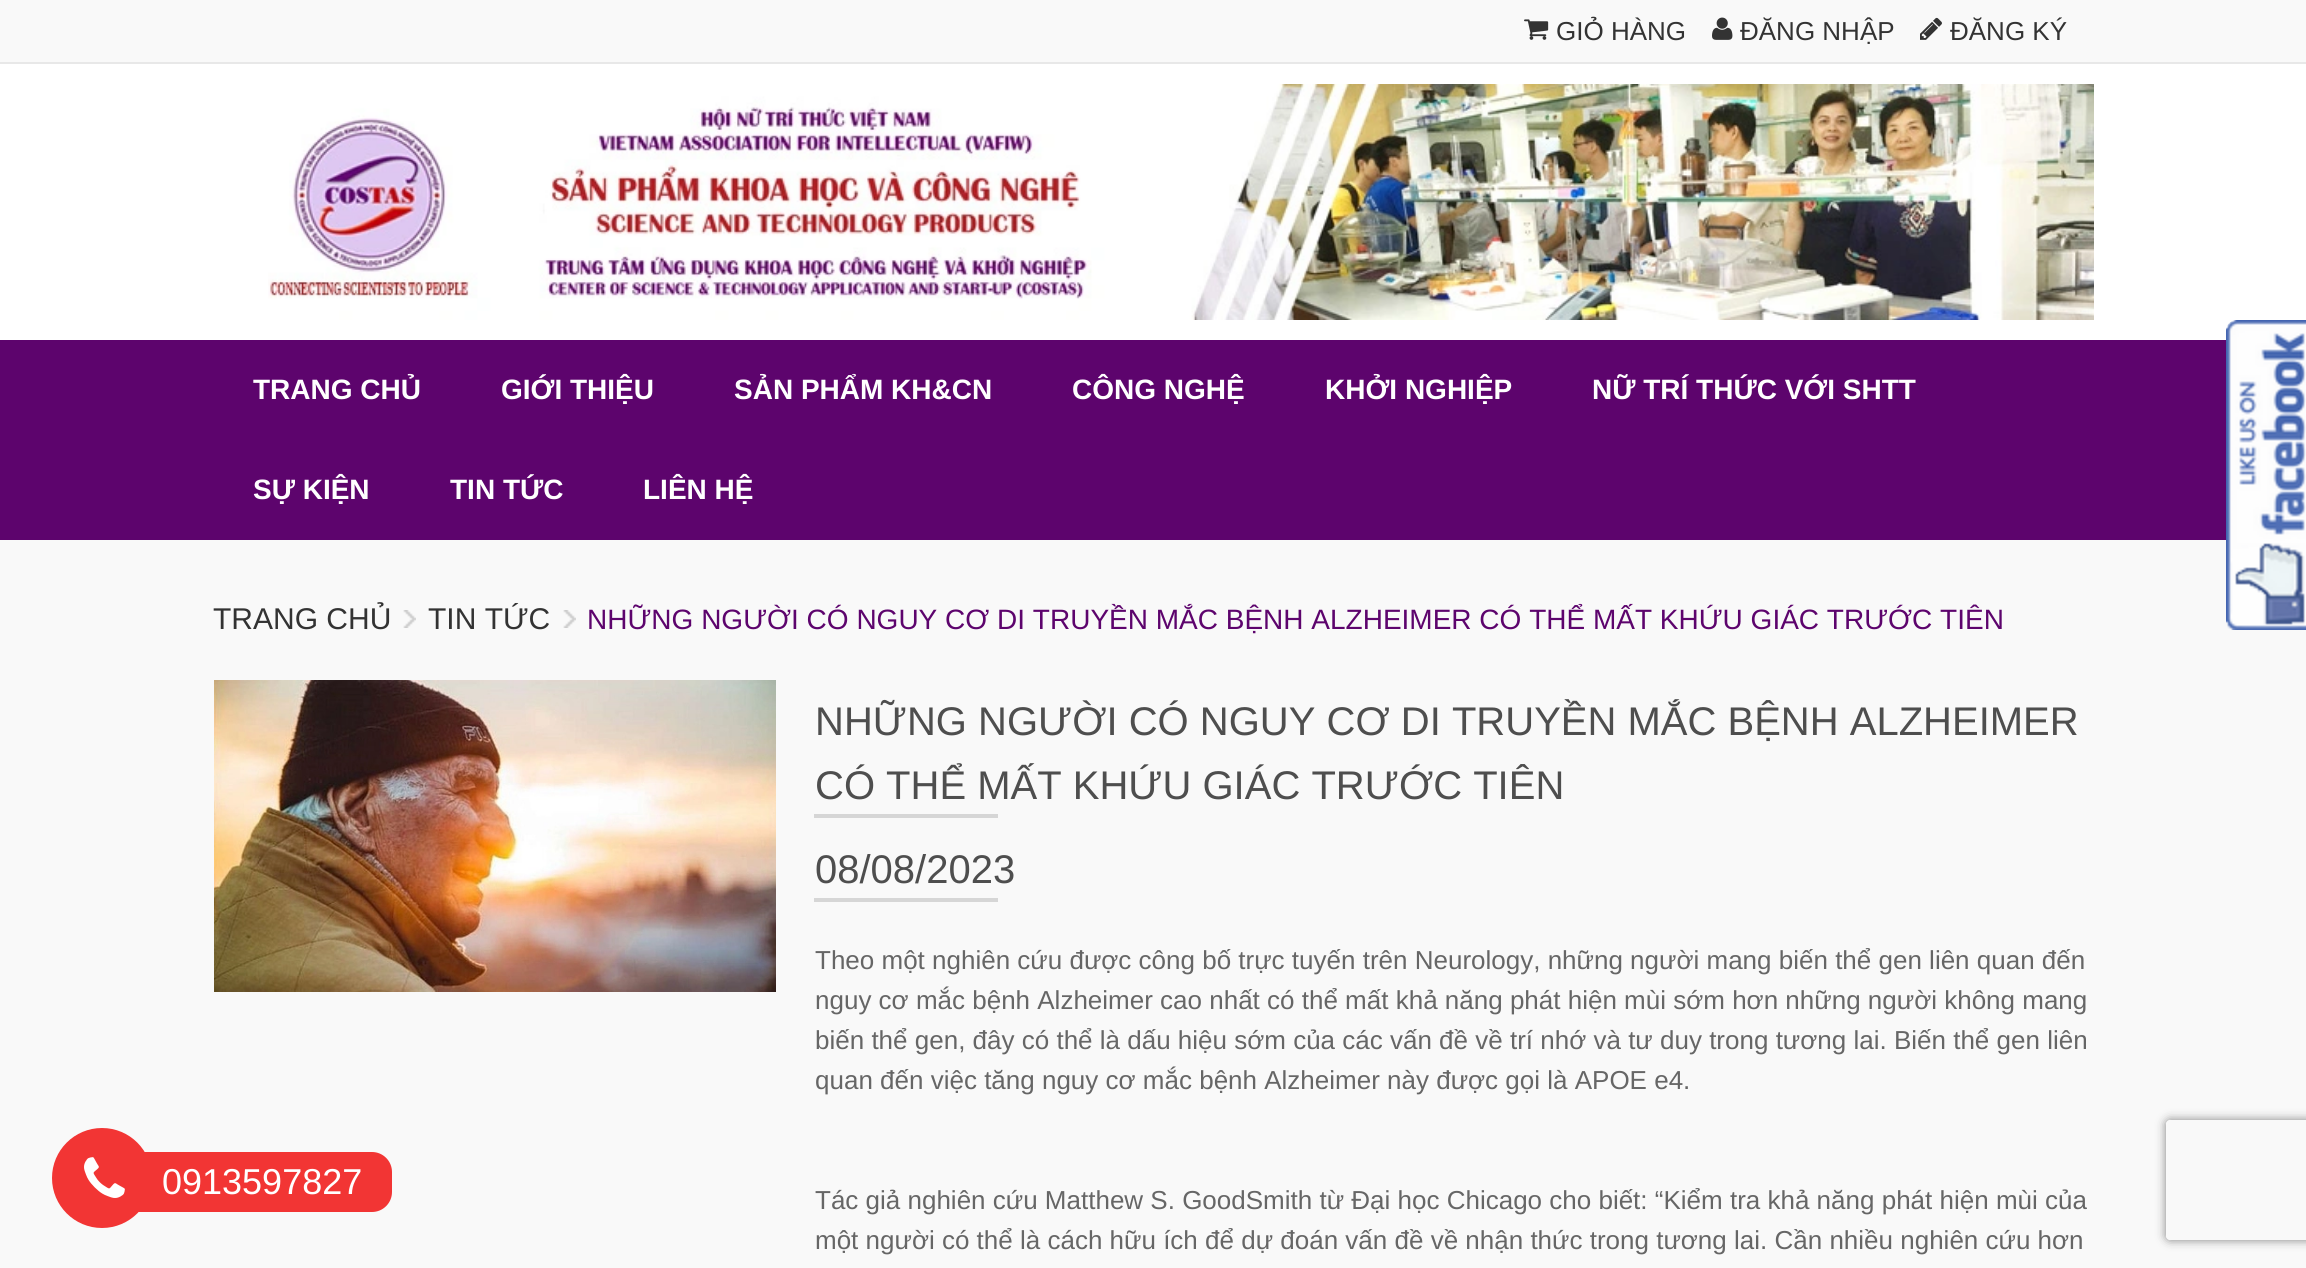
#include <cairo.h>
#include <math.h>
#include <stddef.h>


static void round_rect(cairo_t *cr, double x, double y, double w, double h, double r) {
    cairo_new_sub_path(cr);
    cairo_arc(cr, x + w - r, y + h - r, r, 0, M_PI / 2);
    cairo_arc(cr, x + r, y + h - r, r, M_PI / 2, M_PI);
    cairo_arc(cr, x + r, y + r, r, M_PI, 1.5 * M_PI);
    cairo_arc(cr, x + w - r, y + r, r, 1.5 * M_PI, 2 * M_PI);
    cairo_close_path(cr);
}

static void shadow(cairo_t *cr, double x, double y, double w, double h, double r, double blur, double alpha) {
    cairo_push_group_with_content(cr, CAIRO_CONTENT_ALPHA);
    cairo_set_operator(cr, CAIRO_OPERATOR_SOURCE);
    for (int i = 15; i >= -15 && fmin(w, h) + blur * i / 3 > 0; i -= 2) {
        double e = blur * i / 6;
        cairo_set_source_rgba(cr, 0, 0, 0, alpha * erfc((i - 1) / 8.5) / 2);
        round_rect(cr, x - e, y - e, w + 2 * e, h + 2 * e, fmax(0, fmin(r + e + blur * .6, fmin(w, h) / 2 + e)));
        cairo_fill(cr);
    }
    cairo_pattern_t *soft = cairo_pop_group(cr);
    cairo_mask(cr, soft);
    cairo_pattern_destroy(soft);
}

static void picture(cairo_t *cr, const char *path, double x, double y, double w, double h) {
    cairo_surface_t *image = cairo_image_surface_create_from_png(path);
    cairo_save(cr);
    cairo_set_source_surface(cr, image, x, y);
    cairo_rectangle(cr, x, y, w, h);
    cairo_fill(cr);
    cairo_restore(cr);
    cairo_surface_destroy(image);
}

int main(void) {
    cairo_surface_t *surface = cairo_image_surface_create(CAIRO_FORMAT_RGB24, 2306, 1268);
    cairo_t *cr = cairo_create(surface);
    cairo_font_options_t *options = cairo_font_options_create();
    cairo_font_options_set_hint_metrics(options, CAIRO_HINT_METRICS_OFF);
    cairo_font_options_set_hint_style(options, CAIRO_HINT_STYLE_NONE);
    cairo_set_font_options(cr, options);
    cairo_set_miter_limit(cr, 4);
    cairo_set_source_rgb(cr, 0.976, 0.976, 0.976);
    cairo_paint(cr);
    cairo_set_source_rgb(cr, 0.91, 0.91, 0.91);
    cairo_rectangle(cr, 0, 62, 2306, 2);
    cairo_fill(cr);
    picture(cr, "img1.png", 1524, 19, 25, 21);
    cairo_select_font_face(cr, "Liberation Sans", CAIRO_FONT_SLANT_NORMAL, CAIRO_FONT_WEIGHT_NORMAL);
    cairo_set_font_size(cr, 26);
    cairo_set_source_rgb(cr, 0.2, 0.2, 0.2);
    cairo_move_to(cr, 1556, 40);
    cairo_show_text(cr, "GIỎ HÀNG");
    picture(cr, "img2.png", 1712, 17, 21, 23);
    cairo_move_to(cr, 1740, 40);
    cairo_show_text(cr, "ĐĂNG NHẬP");
    picture(cr, "img3.png", 1920, 17, 22, 23);
    cairo_move_to(cr, 1950, 40);
    cairo_show_text(cr, "ĐĂNG KÝ");
    cairo_set_source_rgb(cr, 1, 1, 1);
    cairo_rectangle(cr, 0, 64, 2306, 276);
    cairo_fill(cr);
    picture(cr, "img4.png", 268, 84, 1826, 236);
    cairo_set_source_rgb(cr, 0.365, 0.016, 0.427);
    cairo_rectangle(cr, 0, 340, 2226, 200);
    cairo_fill(cr);
    cairo_select_font_face(cr, "Liberation Sans", CAIRO_FONT_SLANT_NORMAL, CAIRO_FONT_WEIGHT_BOLD);
    cairo_set_font_size(cr, 28);
    cairo_set_source_rgb(cr, 1, 1, 1);
    cairo_move_to(cr, 253, 399);
    cairo_show_text(cr, "TRANG CHỦ");
    cairo_move_to(cr, 501, 399);
    cairo_show_text(cr, "GIỚI THIỆU");
    cairo_move_to(cr, 734, 399);
    cairo_show_text(cr, "SẢN PHẨM KH&CN");
    cairo_move_to(cr, 1072, 399);
    cairo_show_text(cr, "CÔNG NGHỆ");
    cairo_move_to(cr, 1325, 399);
    cairo_show_text(cr, "KHỞI NGHIỆP");
    cairo_move_to(cr, 1592, 399);
    cairo_show_text(cr, "NỮ TRÍ THỨC VỚI SHTT");
    cairo_move_to(cr, 253, 499);
    cairo_show_text(cr, "SỰ KIỆN");
    cairo_move_to(cr, 450, 499);
    cairo_show_text(cr, "TIN TỨC");
    cairo_move_to(cr, 643, 499);
    cairo_show_text(cr, "LIÊN HỆ");
    picture(cr, "img5.png", 2226, 320, 80, 310);
    cairo_select_font_face(cr, "Liberation Sans", CAIRO_FONT_SLANT_NORMAL, CAIRO_FONT_WEIGHT_NORMAL);
    cairo_set_font_size(cr, 30);
    cairo_set_source_rgb(cr, 0.2, 0.2, 0.2);
    cairo_move_to(cr, 213, 629);
    cairo_show_text(cr, "TRANG CHỦ");
    picture(cr, "img6.png", 403, 610, 13, 18);
    cairo_move_to(cr, 428, 629);
    cairo_show_text(cr, "TIN TỨC");
    picture(cr, "img6.png", 563, 610, 13, 18);
    cairo_set_font_size(cr, 28);
    cairo_set_source_rgb(cr, 0.365, 0.016, 0.427);
    cairo_move_to(cr, 587, 629);
    cairo_show_text(cr, "NHỮNG NGƯỜI CÓ NGUY CƠ DI TRUYỀN MẮC BỆNH ALZHEIMER CÓ THỂ MẤT KHỨU GIÁC TRƯỚC TIÊN");
    picture(cr, "img7.png", 214, 680, 562, 312);
    cairo_set_font_size(cr, 40);
    cairo_set_source_rgb(cr, 0.306, 0.306, 0.306);
    cairo_move_to(cr, 815, 735);
    cairo_show_text(cr, "NHỮNG NGƯỜI CÓ NGUY CƠ DI TRUYỀN MẮC BỆNH ALZHEIMER");
    cairo_move_to(cr, 815, 799);
    cairo_show_text(cr, "CÓ THỂ MẤT KHỨU GIÁC TRƯỚC TIÊN");
    cairo_set_source_rgb(cr, 0.839, 0.839, 0.839);
    cairo_rectangle(cr, 814, 814, 184, 4);
    cairo_fill(cr);
    cairo_set_source_rgb(cr, 0.306, 0.306, 0.306);
    cairo_move_to(cr, 815, 883);
    cairo_show_text(cr, "08/08/2023");
    cairo_set_source_rgb(cr, 0.839, 0.839, 0.839);
    cairo_rectangle(cr, 814, 898, 184, 4);
    cairo_fill(cr);
    cairo_set_font_size(cr, 26);
    cairo_set_source_rgb(cr, 0.4, 0.4, 0.4);
    cairo_move_to(cr, 815, 969);
    cairo_show_text(cr, "Theo một nghiên cứu được công bố trực tuyến trên Neurology, những người mang biến thể gen liên quan đến");
    cairo_move_to(cr, 815, 1009);
    cairo_show_text(cr, "nguy cơ mắc bệnh Alzheimer cao nhất có thể mất khả năng phát hiện mùi sớm hơn những người không mang");
    cairo_move_to(cr, 815, 1049);
    cairo_show_text(cr, "biến thể gen, đây có thể là dấu hiệu sớm của các vấn đề về trí nhớ và tư duy trong tương lai. Biến thể gen liên");
    cairo_move_to(cr, 815, 1089);
    cairo_show_text(cr, "quan đến việc tăng nguy cơ mắc bệnh Alzheimer này được gọi là APOE e4.");
    cairo_move_to(cr, 815, 1209);
    cairo_show_text(cr, "Tác giả nghiên cứu Matthew S. GoodSmith từ Đại học Chicago cho biết: “Kiểm tra khả năng phát hiện mùi của");
    cairo_move_to(cr, 815, 1249);
    cairo_show_text(cr, "một người có thể là cách hữu ích để dự đoán vấn đề về nhận thức trong tương lai. Cần nhiều nghiên cứu hơn");
    cairo_save(cr);
    cairo_set_fill_rule(cr, CAIRO_FILL_RULE_EVEN_ODD);
    cairo_new_path(cr);
    cairo_move_to(cr, 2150, 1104);
    cairo_line_to(cr, 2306, 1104);
    cairo_line_to(cr, 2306, 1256);
    cairo_line_to(cr, 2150, 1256);
    cairo_close_path(cr);
    cairo_move_to(cr, 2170, 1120);
    cairo_line_to(cr, 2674, 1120);
    cairo_curve_to(cr, 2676, 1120, 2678, 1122, 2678, 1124);
    cairo_line_to(cr, 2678, 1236);
    cairo_curve_to(cr, 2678, 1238, 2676, 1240, 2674, 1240);
    cairo_line_to(cr, 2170, 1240);
    cairo_curve_to(cr, 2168, 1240, 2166, 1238, 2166, 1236);
    cairo_line_to(cr, 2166, 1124);
    cairo_curve_to(cr, 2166, 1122, 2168, 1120, 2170, 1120);
    cairo_close_path(cr);
    cairo_clip(cr);
    cairo_set_source_rgb(cr, 0.502, 0.502, 0.502);
    shadow(cr, 2166, 1120, 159, 120, 4, 5, 1);
    cairo_restore(cr);
    cairo_set_source_rgb(cr, 0.949, 0.208, 0.204);
    cairo_arc(cr, 102, 1178, 50, 0, 2 * M_PI);
    cairo_fill(cr);
    picture(cr, "img8.png", 84, 1157, 41, 41);
    cairo_new_path(cr);
    cairo_move_to(cr, 132, 1152);
    cairo_line_to(cr, 372, 1152);
    cairo_curve_to(cr, 383, 1152, 392, 1161, 392, 1172);
    cairo_line_to(cr, 392, 1192);
    cairo_curve_to(cr, 392, 1203, 383, 1212, 372, 1212);
    cairo_line_to(cr, 132, 1212);
    cairo_close_path(cr);
    cairo_fill(cr);
    cairo_set_font_size(cr, 36);
    cairo_set_source_rgb(cr, 1, 1, 1);
    cairo_move_to(cr, 162, 1194);
    cairo_show_text(cr, "0913597827");
    cairo_surface_write_to_png(surface, "page.png");
    cairo_font_options_destroy(options);
    cairo_destroy(cr);
    cairo_surface_destroy(surface);
    return 0;
}
